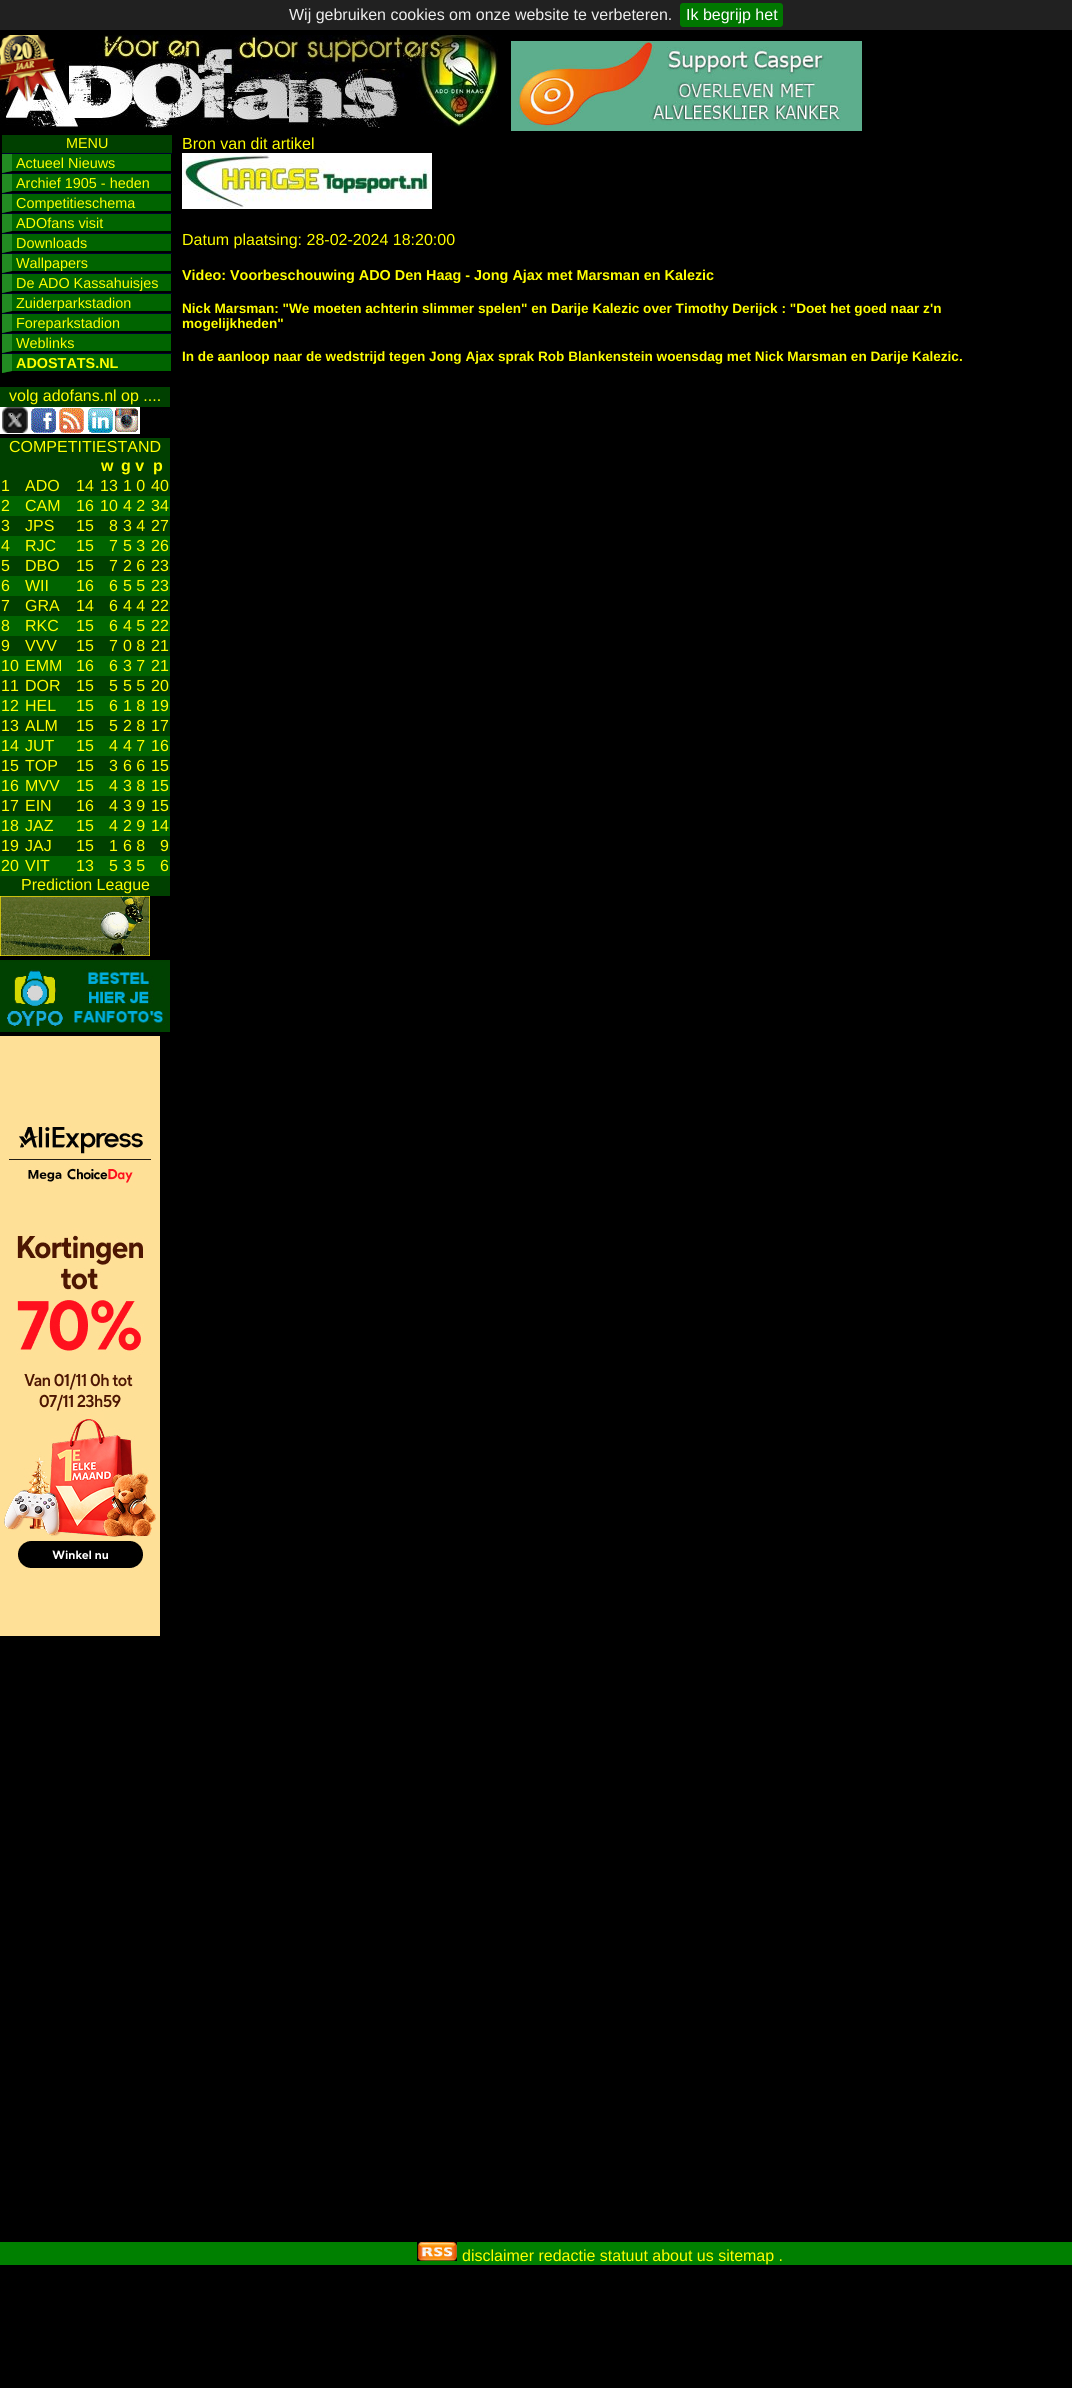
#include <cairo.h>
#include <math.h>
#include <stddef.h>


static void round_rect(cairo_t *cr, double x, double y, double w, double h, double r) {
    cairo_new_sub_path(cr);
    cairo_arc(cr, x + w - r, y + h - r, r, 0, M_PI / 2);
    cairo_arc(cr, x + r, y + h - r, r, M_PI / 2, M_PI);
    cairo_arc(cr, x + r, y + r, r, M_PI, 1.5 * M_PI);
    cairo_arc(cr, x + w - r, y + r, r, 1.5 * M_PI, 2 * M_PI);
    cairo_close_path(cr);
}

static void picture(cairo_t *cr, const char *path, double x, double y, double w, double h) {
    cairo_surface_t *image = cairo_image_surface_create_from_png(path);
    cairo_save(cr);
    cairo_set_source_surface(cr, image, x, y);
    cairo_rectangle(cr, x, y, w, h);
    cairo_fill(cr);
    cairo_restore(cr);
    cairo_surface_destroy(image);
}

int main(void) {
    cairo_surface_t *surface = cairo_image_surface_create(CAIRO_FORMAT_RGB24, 1072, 2388);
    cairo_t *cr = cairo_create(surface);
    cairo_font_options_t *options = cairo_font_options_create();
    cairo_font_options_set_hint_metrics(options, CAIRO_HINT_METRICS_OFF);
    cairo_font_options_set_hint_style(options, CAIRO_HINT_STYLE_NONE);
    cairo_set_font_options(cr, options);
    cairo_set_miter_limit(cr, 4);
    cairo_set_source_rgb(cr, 0, 0, 0);
    cairo_paint(cr);
    cairo_set_source_rgb(cr, 0.129, 0.129, 0.129);
    cairo_rectangle(cr, 0, 0, 1072, 30);
    cairo_fill(cr);
    cairo_select_font_face(cr, "Liberation Sans", CAIRO_FONT_SLANT_NORMAL, CAIRO_FONT_WEIGHT_NORMAL);
    cairo_set_font_size(cr, 16);
    cairo_set_source_rgb(cr, 0.933, 0.933, 0.933);
    cairo_move_to(cr, 289, 20);
    cairo_show_text(cr, "Wij gebruiken cookies om onze website te verbeteren.");
    cairo_set_source_rgb(cr, 0, 0.467, 0);
    round_rect(cr, 680, 3, 103, 24, 3);
    cairo_fill(cr);
    cairo_set_source_rgb(cr, 1, 1, 1);
    cairo_move_to(cr, 686, 20);
    cairo_show_text(cr, "Ik begrijp het");
    picture(cr, "img1.png", 0, 35, 498, 93);
    picture(cr, "img2.png", 511, 41, 351, 90);
    cairo_set_source_rgb(cr, 0, 0.251, 0);
    cairo_rectangle(cr, 2, 135, 170, 18);
    cairo_fill(cr);
    cairo_set_font_size(cr, 14.4);
    cairo_set_source_rgb(cr, 1, 1, 0);
    cairo_move_to(cr, 66, 148);
    cairo_show_text(cr, "MENU");
    cairo_set_source_rgb(cr, 0, 0, 0.2);
    cairo_rectangle(cr, 2, 153, 170, 1);
    cairo_fill(cr);
    cairo_set_source_rgb(cr, 0, 0.392, 0);
    cairo_rectangle(cr, 2, 154, 169, 19);
    cairo_fill(cr);
    cairo_set_source_rgb(cr, 0, 0, 0);
    cairo_new_path(cr);
    cairo_move_to(cr, 172, 173);
    cairo_line_to(cr, 2, 173);
    cairo_line_to(cr, 12, 171);
    cairo_line_to(cr, 171, 171);
    cairo_close_path(cr);
    cairo_fill(cr);
    cairo_set_source_rgb(cr, 0.133, 0.545, 0.133);
    cairo_new_path(cr);
    cairo_move_to(cr, 2, 173);
    cairo_line_to(cr, 2, 154);
    cairo_line_to(cr, 12, 154);
    cairo_line_to(cr, 12, 171);
    cairo_close_path(cr);
    cairo_fill(cr);
    cairo_set_source_rgb(cr, 1, 1, 0);
    cairo_move_to(cr, 16, 168);
    cairo_show_text(cr, "Actueel Nieuws");
    cairo_set_source_rgb(cr, 0, 0, 0.2);
    cairo_rectangle(cr, 2, 173, 170, 1);
    cairo_fill(cr);
    cairo_set_source_rgb(cr, 0, 0.392, 0);
    cairo_rectangle(cr, 2, 174, 169, 19);
    cairo_fill(cr);
    cairo_set_source_rgb(cr, 0, 0, 0);
    cairo_new_path(cr);
    cairo_move_to(cr, 172, 193);
    cairo_line_to(cr, 2, 193);
    cairo_line_to(cr, 12, 191);
    cairo_line_to(cr, 171, 191);
    cairo_close_path(cr);
    cairo_fill(cr);
    cairo_set_source_rgb(cr, 0.133, 0.545, 0.133);
    cairo_new_path(cr);
    cairo_move_to(cr, 2, 193);
    cairo_line_to(cr, 2, 174);
    cairo_line_to(cr, 12, 174);
    cairo_line_to(cr, 12, 191);
    cairo_close_path(cr);
    cairo_fill(cr);
    cairo_set_source_rgb(cr, 1, 1, 0);
    cairo_move_to(cr, 16, 188);
    cairo_show_text(cr, "Archief 1905 - heden");
    cairo_set_source_rgb(cr, 0, 0, 0.2);
    cairo_rectangle(cr, 2, 193, 170, 1);
    cairo_fill(cr);
    cairo_set_source_rgb(cr, 0, 0.392, 0);
    cairo_rectangle(cr, 2, 194, 169, 19);
    cairo_fill(cr);
    cairo_set_source_rgb(cr, 0, 0, 0);
    cairo_new_path(cr);
    cairo_move_to(cr, 172, 213);
    cairo_line_to(cr, 2, 213);
    cairo_line_to(cr, 12, 211);
    cairo_line_to(cr, 171, 211);
    cairo_close_path(cr);
    cairo_fill(cr);
    cairo_set_source_rgb(cr, 0.133, 0.545, 0.133);
    cairo_new_path(cr);
    cairo_move_to(cr, 2, 213);
    cairo_line_to(cr, 2, 194);
    cairo_line_to(cr, 12, 194);
    cairo_line_to(cr, 12, 211);
    cairo_close_path(cr);
    cairo_fill(cr);
    cairo_set_source_rgb(cr, 1, 1, 0);
    cairo_move_to(cr, 16, 208);
    cairo_show_text(cr, "Competitieschema");
    cairo_set_source_rgb(cr, 0, 0, 0.2);
    cairo_rectangle(cr, 2, 213, 170, 1);
    cairo_fill(cr);
    cairo_set_source_rgb(cr, 0, 0.392, 0);
    cairo_rectangle(cr, 2, 214, 169, 19);
    cairo_fill(cr);
    cairo_set_source_rgb(cr, 0, 0, 0);
    cairo_new_path(cr);
    cairo_move_to(cr, 172, 233);
    cairo_line_to(cr, 2, 233);
    cairo_line_to(cr, 12, 231);
    cairo_line_to(cr, 171, 231);
    cairo_close_path(cr);
    cairo_fill(cr);
    cairo_set_source_rgb(cr, 0.133, 0.545, 0.133);
    cairo_new_path(cr);
    cairo_move_to(cr, 2, 233);
    cairo_line_to(cr, 2, 214);
    cairo_line_to(cr, 12, 214);
    cairo_line_to(cr, 12, 231);
    cairo_close_path(cr);
    cairo_fill(cr);
    cairo_set_source_rgb(cr, 1, 1, 0);
    cairo_move_to(cr, 16, 228);
    cairo_show_text(cr, "ADOfans visit");
    cairo_set_source_rgb(cr, 0, 0, 0.2);
    cairo_rectangle(cr, 2, 233, 170, 1);
    cairo_fill(cr);
    cairo_set_source_rgb(cr, 0, 0.392, 0);
    cairo_rectangle(cr, 2, 234, 169, 19);
    cairo_fill(cr);
    cairo_set_source_rgb(cr, 0, 0, 0);
    cairo_new_path(cr);
    cairo_move_to(cr, 172, 253);
    cairo_line_to(cr, 2, 253);
    cairo_line_to(cr, 12, 251);
    cairo_line_to(cr, 171, 251);
    cairo_close_path(cr);
    cairo_fill(cr);
    cairo_set_source_rgb(cr, 0.133, 0.545, 0.133);
    cairo_new_path(cr);
    cairo_move_to(cr, 2, 253);
    cairo_line_to(cr, 2, 234);
    cairo_line_to(cr, 12, 234);
    cairo_line_to(cr, 12, 251);
    cairo_close_path(cr);
    cairo_fill(cr);
    cairo_set_source_rgb(cr, 1, 1, 0);
    cairo_move_to(cr, 16, 248);
    cairo_show_text(cr, "Downloads");
    cairo_set_source_rgb(cr, 0, 0, 0.2);
    cairo_rectangle(cr, 2, 253, 170, 1);
    cairo_fill(cr);
    cairo_set_source_rgb(cr, 0, 0.392, 0);
    cairo_rectangle(cr, 2, 254, 169, 19);
    cairo_fill(cr);
    cairo_set_source_rgb(cr, 0, 0, 0);
    cairo_new_path(cr);
    cairo_move_to(cr, 172, 273);
    cairo_line_to(cr, 2, 273);
    cairo_line_to(cr, 12, 271);
    cairo_line_to(cr, 171, 271);
    cairo_close_path(cr);
    cairo_fill(cr);
    cairo_set_source_rgb(cr, 0.133, 0.545, 0.133);
    cairo_new_path(cr);
    cairo_move_to(cr, 2, 273);
    cairo_line_to(cr, 2, 254);
    cairo_line_to(cr, 12, 254);
    cairo_line_to(cr, 12, 271);
    cairo_close_path(cr);
    cairo_fill(cr);
    cairo_set_source_rgb(cr, 1, 1, 0);
    cairo_move_to(cr, 16, 268);
    cairo_show_text(cr, "Wallpapers");
    cairo_set_source_rgb(cr, 0, 0, 0.2);
    cairo_rectangle(cr, 2, 273, 170, 1);
    cairo_fill(cr);
    cairo_set_source_rgb(cr, 0, 0.392, 0);
    cairo_rectangle(cr, 2, 274, 169, 19);
    cairo_fill(cr);
    cairo_set_source_rgb(cr, 0, 0, 0);
    cairo_new_path(cr);
    cairo_move_to(cr, 172, 293);
    cairo_line_to(cr, 2, 293);
    cairo_line_to(cr, 12, 291);
    cairo_line_to(cr, 171, 291);
    cairo_close_path(cr);
    cairo_fill(cr);
    cairo_set_source_rgb(cr, 0.133, 0.545, 0.133);
    cairo_new_path(cr);
    cairo_move_to(cr, 2, 293);
    cairo_line_to(cr, 2, 274);
    cairo_line_to(cr, 12, 274);
    cairo_line_to(cr, 12, 291);
    cairo_close_path(cr);
    cairo_fill(cr);
    cairo_set_source_rgb(cr, 1, 1, 0);
    cairo_move_to(cr, 16, 288);
    cairo_show_text(cr, "De ADO Kassahuisjes");
    cairo_set_source_rgb(cr, 0, 0, 0.2);
    cairo_rectangle(cr, 2, 293, 170, 1);
    cairo_fill(cr);
    cairo_set_source_rgb(cr, 0, 0.392, 0);
    cairo_rectangle(cr, 2, 294, 169, 19);
    cairo_fill(cr);
    cairo_set_source_rgb(cr, 0, 0, 0);
    cairo_new_path(cr);
    cairo_move_to(cr, 172, 313);
    cairo_line_to(cr, 2, 313);
    cairo_line_to(cr, 12, 311);
    cairo_line_to(cr, 171, 311);
    cairo_close_path(cr);
    cairo_fill(cr);
    cairo_set_source_rgb(cr, 0.133, 0.545, 0.133);
    cairo_new_path(cr);
    cairo_move_to(cr, 2, 313);
    cairo_line_to(cr, 2, 294);
    cairo_line_to(cr, 12, 294);
    cairo_line_to(cr, 12, 311);
    cairo_close_path(cr);
    cairo_fill(cr);
    cairo_set_source_rgb(cr, 1, 1, 0);
    cairo_move_to(cr, 16, 308);
    cairo_show_text(cr, "Zuiderparkstadion");
    cairo_set_source_rgb(cr, 0, 0, 0.2);
    cairo_rectangle(cr, 2, 313, 170, 1);
    cairo_fill(cr);
    cairo_set_source_rgb(cr, 0, 0.392, 0);
    cairo_rectangle(cr, 2, 314, 169, 19);
    cairo_fill(cr);
    cairo_set_source_rgb(cr, 0, 0, 0);
    cairo_new_path(cr);
    cairo_move_to(cr, 172, 333);
    cairo_line_to(cr, 2, 333);
    cairo_line_to(cr, 12, 331);
    cairo_line_to(cr, 171, 331);
    cairo_close_path(cr);
    cairo_fill(cr);
    cairo_set_source_rgb(cr, 0.133, 0.545, 0.133);
    cairo_new_path(cr);
    cairo_move_to(cr, 2, 333);
    cairo_line_to(cr, 2, 314);
    cairo_line_to(cr, 12, 314);
    cairo_line_to(cr, 12, 331);
    cairo_close_path(cr);
    cairo_fill(cr);
    cairo_set_source_rgb(cr, 1, 1, 0);
    cairo_move_to(cr, 16, 328);
    cairo_show_text(cr, "Foreparkstadion");
    cairo_set_source_rgb(cr, 0, 0, 0.2);
    cairo_rectangle(cr, 2, 333, 170, 1);
    cairo_fill(cr);
    cairo_set_source_rgb(cr, 0, 0.392, 0);
    cairo_rectangle(cr, 2, 334, 169, 19);
    cairo_fill(cr);
    cairo_set_source_rgb(cr, 0, 0, 0);
    cairo_new_path(cr);
    cairo_move_to(cr, 172, 353);
    cairo_line_to(cr, 2, 353);
    cairo_line_to(cr, 12, 351);
    cairo_line_to(cr, 171, 351);
    cairo_close_path(cr);
    cairo_fill(cr);
    cairo_set_source_rgb(cr, 0.133, 0.545, 0.133);
    cairo_new_path(cr);
    cairo_move_to(cr, 2, 353);
    cairo_line_to(cr, 2, 334);
    cairo_line_to(cr, 12, 334);
    cairo_line_to(cr, 12, 351);
    cairo_close_path(cr);
    cairo_fill(cr);
    cairo_set_source_rgb(cr, 1, 1, 0);
    cairo_move_to(cr, 16, 348);
    cairo_show_text(cr, "Weblinks");
    cairo_set_source_rgb(cr, 0, 0, 0.2);
    cairo_rectangle(cr, 2, 353, 170, 1);
    cairo_fill(cr);
    cairo_set_source_rgb(cr, 0, 0.392, 0);
    cairo_rectangle(cr, 2, 354, 169, 19);
    cairo_fill(cr);
    cairo_set_source_rgb(cr, 0, 0, 0);
    cairo_new_path(cr);
    cairo_move_to(cr, 172, 373);
    cairo_line_to(cr, 2, 373);
    cairo_line_to(cr, 12, 371);
    cairo_line_to(cr, 171, 371);
    cairo_close_path(cr);
    cairo_fill(cr);
    cairo_set_source_rgb(cr, 0.133, 0.545, 0.133);
    cairo_new_path(cr);
    cairo_move_to(cr, 2, 373);
    cairo_line_to(cr, 2, 354);
    cairo_line_to(cr, 12, 354);
    cairo_line_to(cr, 12, 371);
    cairo_close_path(cr);
    cairo_fill(cr);
    cairo_select_font_face(cr, "Liberation Sans", CAIRO_FONT_SLANT_NORMAL, CAIRO_FONT_WEIGHT_BOLD);
    cairo_set_source_rgb(cr, 1, 1, 0);
    cairo_move_to(cr, 16, 368);
    cairo_show_text(cr, "ADOSTATS.NL");
    cairo_set_source_rgb(cr, 0, 0.251, 0);
    cairo_rectangle(cr, 0, 387, 170, 20);
    cairo_fill(cr);
    cairo_select_font_face(cr, "Liberation Sans", CAIRO_FONT_SLANT_NORMAL, CAIRO_FONT_WEIGHT_NORMAL);
    cairo_set_font_size(cr, 16);
    cairo_set_source_rgb(cr, 1, 1, 0);
    cairo_move_to(cr, 9, 401);
    cairo_show_text(cr, "volg adofans.nl op ....");
    picture(cr, "img3.png", 0, 407, 140, 27);
    cairo_set_source_rgb(cr, 0, 0.251, 0);
    cairo_rectangle(cr, 0, 438, 170, 18);
    cairo_fill(cr);
    cairo_set_source_rgb(cr, 1, 1, 0);
    cairo_move_to(cr, 9, 452);
    cairo_show_text(cr, "COMPETITIESTAND");
    cairo_set_source_rgb(cr, 0, 0.251, 0);
    cairo_rectangle(cr, 0, 456, 170, 40);
    cairo_fill(cr);
    cairo_select_font_face(cr, "Liberation Sans", CAIRO_FONT_SLANT_NORMAL, CAIRO_FONT_WEIGHT_BOLD);
    cairo_set_source_rgb(cr, 1, 1, 0);
    cairo_move_to(cr, 101, 471);
    cairo_show_text(cr, "w");
    cairo_move_to(cr, 121, 471);
    cairo_show_text(cr, "g v");
    cairo_move_to(cr, 153, 471);
    cairo_show_text(cr, "p");
    cairo_select_font_face(cr, "Liberation Sans", CAIRO_FONT_SLANT_NORMAL, CAIRO_FONT_WEIGHT_NORMAL);
    cairo_move_to(cr, 1, 491);
    cairo_show_text(cr, "1");
    cairo_move_to(cr, 25, 491);
    cairo_show_text(cr, "ADO");
    cairo_move_to(cr, 76, 491);
    cairo_show_text(cr, "14");
    cairo_move_to(cr, 100, 491);
    cairo_show_text(cr, "13");
    cairo_move_to(cr, 123, 491);
    cairo_show_text(cr, "1 0");
    cairo_move_to(cr, 151, 491);
    cairo_show_text(cr, "40");
    cairo_set_source_rgb(cr, 0, 0.392, 0);
    cairo_rectangle(cr, 0, 496, 170, 20);
    cairo_fill(cr);
    cairo_set_source_rgb(cr, 1, 1, 0);
    cairo_move_to(cr, 1, 511);
    cairo_show_text(cr, "2");
    cairo_move_to(cr, 25, 511);
    cairo_show_text(cr, "CAM");
    cairo_move_to(cr, 76, 511);
    cairo_show_text(cr, "16");
    cairo_move_to(cr, 100, 511);
    cairo_show_text(cr, "10");
    cairo_move_to(cr, 123, 511);
    cairo_show_text(cr, "4 2");
    cairo_move_to(cr, 151, 511);
    cairo_show_text(cr, "34");
    cairo_set_source_rgb(cr, 0, 0.251, 0);
    cairo_rectangle(cr, 0, 516, 170, 20);
    cairo_fill(cr);
    cairo_set_source_rgb(cr, 1, 1, 0);
    cairo_move_to(cr, 1, 531);
    cairo_show_text(cr, "3");
    cairo_move_to(cr, 25, 531);
    cairo_show_text(cr, "JPS");
    cairo_move_to(cr, 76, 531);
    cairo_show_text(cr, "15");
    cairo_move_to(cr, 109, 531);
    cairo_show_text(cr, "8");
    cairo_move_to(cr, 123, 531);
    cairo_show_text(cr, "3 4");
    cairo_move_to(cr, 151, 531);
    cairo_show_text(cr, "27");
    cairo_set_source_rgb(cr, 0, 0.392, 0);
    cairo_rectangle(cr, 0, 536, 170, 20);
    cairo_fill(cr);
    cairo_set_source_rgb(cr, 1, 1, 0);
    cairo_move_to(cr, 1, 551);
    cairo_show_text(cr, "4");
    cairo_move_to(cr, 25, 551);
    cairo_show_text(cr, "RJC");
    cairo_move_to(cr, 76, 551);
    cairo_show_text(cr, "15");
    cairo_move_to(cr, 109, 551);
    cairo_show_text(cr, "7");
    cairo_move_to(cr, 123, 551);
    cairo_show_text(cr, "5 3");
    cairo_move_to(cr, 151, 551);
    cairo_show_text(cr, "26");
    cairo_set_source_rgb(cr, 0, 0.251, 0);
    cairo_rectangle(cr, 0, 556, 170, 20);
    cairo_fill(cr);
    cairo_set_source_rgb(cr, 1, 1, 0);
    cairo_move_to(cr, 1, 571);
    cairo_show_text(cr, "5");
    cairo_move_to(cr, 25, 571);
    cairo_show_text(cr, "DBO");
    cairo_move_to(cr, 76, 571);
    cairo_show_text(cr, "15");
    cairo_move_to(cr, 109, 571);
    cairo_show_text(cr, "7");
    cairo_move_to(cr, 123, 571);
    cairo_show_text(cr, "2 6");
    cairo_move_to(cr, 151, 571);
    cairo_show_text(cr, "23");
    cairo_set_source_rgb(cr, 0, 0.392, 0);
    cairo_rectangle(cr, 0, 576, 170, 20);
    cairo_fill(cr);
    cairo_set_source_rgb(cr, 1, 1, 0);
    cairo_move_to(cr, 1, 591);
    cairo_show_text(cr, "6");
    cairo_move_to(cr, 25, 591);
    cairo_show_text(cr, "WII");
    cairo_move_to(cr, 76, 591);
    cairo_show_text(cr, "16");
    cairo_move_to(cr, 109, 591);
    cairo_show_text(cr, "6");
    cairo_move_to(cr, 123, 591);
    cairo_show_text(cr, "5 5");
    cairo_move_to(cr, 151, 591);
    cairo_show_text(cr, "23");
    cairo_set_source_rgb(cr, 0, 0.251, 0);
    cairo_rectangle(cr, 0, 596, 170, 20);
    cairo_fill(cr);
    cairo_set_source_rgb(cr, 1, 1, 0);
    cairo_move_to(cr, 1, 611);
    cairo_show_text(cr, "7");
    cairo_move_to(cr, 25, 611);
    cairo_show_text(cr, "GRA");
    cairo_move_to(cr, 76, 611);
    cairo_show_text(cr, "14");
    cairo_move_to(cr, 109, 611);
    cairo_show_text(cr, "6");
    cairo_move_to(cr, 123, 611);
    cairo_show_text(cr, "4 4");
    cairo_move_to(cr, 151, 611);
    cairo_show_text(cr, "22");
    cairo_set_source_rgb(cr, 0, 0.392, 0);
    cairo_rectangle(cr, 0, 616, 170, 20);
    cairo_fill(cr);
    cairo_set_source_rgb(cr, 1, 1, 0);
    cairo_move_to(cr, 1, 631);
    cairo_show_text(cr, "8");
    cairo_move_to(cr, 25, 631);
    cairo_show_text(cr, "RKC");
    cairo_move_to(cr, 76, 631);
    cairo_show_text(cr, "15");
    cairo_move_to(cr, 109, 631);
    cairo_show_text(cr, "6");
    cairo_move_to(cr, 123, 631);
    cairo_show_text(cr, "4 5");
    cairo_move_to(cr, 151, 631);
    cairo_show_text(cr, "22");
    cairo_set_source_rgb(cr, 0, 0.251, 0);
    cairo_rectangle(cr, 0, 636, 170, 20);
    cairo_fill(cr);
    cairo_set_source_rgb(cr, 1, 1, 0);
    cairo_move_to(cr, 1, 651);
    cairo_show_text(cr, "9");
    cairo_move_to(cr, 25, 651);
    cairo_show_text(cr, "VVV");
    cairo_move_to(cr, 76, 651);
    cairo_show_text(cr, "15");
    cairo_move_to(cr, 109, 651);
    cairo_show_text(cr, "7");
    cairo_move_to(cr, 123, 651);
    cairo_show_text(cr, "0 8");
    cairo_move_to(cr, 151, 651);
    cairo_show_text(cr, "21");
    cairo_set_source_rgb(cr, 0, 0.392, 0);
    cairo_rectangle(cr, 0, 656, 170, 20);
    cairo_fill(cr);
    cairo_set_source_rgb(cr, 1, 1, 0);
    cairo_move_to(cr, 1, 671);
    cairo_show_text(cr, "10");
    cairo_move_to(cr, 25, 671);
    cairo_show_text(cr, "EMM");
    cairo_move_to(cr, 76, 671);
    cairo_show_text(cr, "16");
    cairo_move_to(cr, 109, 671);
    cairo_show_text(cr, "6");
    cairo_move_to(cr, 123, 671);
    cairo_show_text(cr, "3 7");
    cairo_move_to(cr, 151, 671);
    cairo_show_text(cr, "21");
    cairo_set_source_rgb(cr, 0, 0.251, 0);
    cairo_rectangle(cr, 0, 676, 170, 20);
    cairo_fill(cr);
    cairo_set_source_rgb(cr, 1, 1, 0);
    cairo_move_to(cr, 1, 691);
    cairo_show_text(cr, "11");
    cairo_move_to(cr, 25, 691);
    cairo_show_text(cr, "DOR");
    cairo_move_to(cr, 76, 691);
    cairo_show_text(cr, "15");
    cairo_move_to(cr, 109, 691);
    cairo_show_text(cr, "5");
    cairo_move_to(cr, 123, 691);
    cairo_show_text(cr, "5 5");
    cairo_move_to(cr, 151, 691);
    cairo_show_text(cr, "20");
    cairo_set_source_rgb(cr, 0, 0.392, 0);
    cairo_rectangle(cr, 0, 696, 170, 20);
    cairo_fill(cr);
    cairo_set_source_rgb(cr, 1, 1, 0);
    cairo_move_to(cr, 1, 711);
    cairo_show_text(cr, "12");
    cairo_move_to(cr, 25, 711);
    cairo_show_text(cr, "HEL");
    cairo_move_to(cr, 76, 711);
    cairo_show_text(cr, "15");
    cairo_move_to(cr, 109, 711);
    cairo_show_text(cr, "6");
    cairo_move_to(cr, 123, 711);
    cairo_show_text(cr, "1 8");
    cairo_move_to(cr, 151, 711);
    cairo_show_text(cr, "19");
    cairo_set_source_rgb(cr, 0, 0.251, 0);
    cairo_rectangle(cr, 0, 716, 170, 20);
    cairo_fill(cr);
    cairo_set_source_rgb(cr, 1, 1, 0);
    cairo_move_to(cr, 1, 731);
    cairo_show_text(cr, "13");
    cairo_move_to(cr, 25, 731);
    cairo_show_text(cr, "ALM");
    cairo_move_to(cr, 76, 731);
    cairo_show_text(cr, "15");
    cairo_move_to(cr, 109, 731);
    cairo_show_text(cr, "5");
    cairo_move_to(cr, 123, 731);
    cairo_show_text(cr, "2 8");
    cairo_move_to(cr, 151, 731);
    cairo_show_text(cr, "17");
    cairo_set_source_rgb(cr, 0, 0.392, 0);
    cairo_rectangle(cr, 0, 736, 170, 20);
    cairo_fill(cr);
    cairo_set_source_rgb(cr, 1, 1, 0);
    cairo_move_to(cr, 1, 751);
    cairo_show_text(cr, "14");
    cairo_move_to(cr, 25, 751);
    cairo_show_text(cr, "JUT");
    cairo_move_to(cr, 76, 751);
    cairo_show_text(cr, "15");
    cairo_move_to(cr, 109, 751);
    cairo_show_text(cr, "4");
    cairo_move_to(cr, 123, 751);
    cairo_show_text(cr, "4 7");
    cairo_move_to(cr, 151, 751);
    cairo_show_text(cr, "16");
    cairo_set_source_rgb(cr, 0, 0.251, 0);
    cairo_rectangle(cr, 0, 756, 170, 20);
    cairo_fill(cr);
    cairo_set_source_rgb(cr, 1, 1, 0);
    cairo_move_to(cr, 1, 771);
    cairo_show_text(cr, "15");
    cairo_move_to(cr, 25, 771);
    cairo_show_text(cr, "TOP");
    cairo_move_to(cr, 76, 771);
    cairo_show_text(cr, "15");
    cairo_move_to(cr, 109, 771);
    cairo_show_text(cr, "3");
    cairo_move_to(cr, 123, 771);
    cairo_show_text(cr, "6 6");
    cairo_move_to(cr, 151, 771);
    cairo_show_text(cr, "15");
    cairo_set_source_rgb(cr, 0, 0.392, 0);
    cairo_rectangle(cr, 0, 776, 170, 20);
    cairo_fill(cr);
    cairo_set_source_rgb(cr, 1, 1, 0);
    cairo_move_to(cr, 1, 791);
    cairo_show_text(cr, "16");
    cairo_move_to(cr, 25, 791);
    cairo_show_text(cr, "MVV");
    cairo_move_to(cr, 76, 791);
    cairo_show_text(cr, "15");
    cairo_move_to(cr, 109, 791);
    cairo_show_text(cr, "4");
    cairo_move_to(cr, 123, 791);
    cairo_show_text(cr, "3 8");
    cairo_move_to(cr, 151, 791);
    cairo_show_text(cr, "15");
    cairo_set_source_rgb(cr, 0, 0.251, 0);
    cairo_rectangle(cr, 0, 796, 170, 20);
    cairo_fill(cr);
    cairo_set_source_rgb(cr, 1, 1, 0);
    cairo_move_to(cr, 1, 811);
    cairo_show_text(cr, "17");
    cairo_move_to(cr, 25, 811);
    cairo_show_text(cr, "EIN");
    cairo_move_to(cr, 76, 811);
    cairo_show_text(cr, "16");
    cairo_move_to(cr, 109, 811);
    cairo_show_text(cr, "4");
    cairo_move_to(cr, 123, 811);
    cairo_show_text(cr, "3 9");
    cairo_move_to(cr, 151, 811);
    cairo_show_text(cr, "15");
    cairo_set_source_rgb(cr, 0, 0.392, 0);
    cairo_rectangle(cr, 0, 816, 170, 20);
    cairo_fill(cr);
    cairo_set_source_rgb(cr, 1, 1, 0);
    cairo_move_to(cr, 1, 831);
    cairo_show_text(cr, "18");
    cairo_move_to(cr, 25, 831);
    cairo_show_text(cr, "JAZ");
    cairo_move_to(cr, 76, 831);
    cairo_show_text(cr, "15");
    cairo_move_to(cr, 109, 831);
    cairo_show_text(cr, "4");
    cairo_move_to(cr, 123, 831);
    cairo_show_text(cr, "2 9");
    cairo_move_to(cr, 151, 831);
    cairo_show_text(cr, "14");
    cairo_set_source_rgb(cr, 0, 0.251, 0);
    cairo_rectangle(cr, 0, 836, 170, 20);
    cairo_fill(cr);
    cairo_set_source_rgb(cr, 1, 1, 0);
    cairo_move_to(cr, 1, 851);
    cairo_show_text(cr, "19");
    cairo_move_to(cr, 25, 851);
    cairo_show_text(cr, "JAJ");
    cairo_move_to(cr, 76, 851);
    cairo_show_text(cr, "15");
    cairo_move_to(cr, 109, 851);
    cairo_show_text(cr, "1");
    cairo_move_to(cr, 123, 851);
    cairo_show_text(cr, "6 8");
    cairo_move_to(cr, 160, 851);
    cairo_show_text(cr, "9");
    cairo_set_source_rgb(cr, 0, 0.392, 0);
    cairo_rectangle(cr, 0, 856, 170, 20);
    cairo_fill(cr);
    cairo_set_source_rgb(cr, 1, 1, 0);
    cairo_move_to(cr, 1, 871);
    cairo_show_text(cr, "20");
    cairo_move_to(cr, 25, 871);
    cairo_show_text(cr, "VIT");
    cairo_move_to(cr, 76, 871);
    cairo_show_text(cr, "13");
    cairo_move_to(cr, 109, 871);
    cairo_show_text(cr, "5");
    cairo_move_to(cr, 123, 871);
    cairo_show_text(cr, "3 5");
    cairo_move_to(cr, 160, 871);
    cairo_show_text(cr, "6");
    cairo_set_source_rgb(cr, 0, 0.251, 0);
    cairo_rectangle(cr, 0, 876, 170, 20);
    cairo_fill(cr);
    cairo_set_source_rgb(cr, 1, 1, 0);
    cairo_move_to(cr, 21, 890);
    cairo_show_text(cr, "Prediction League");
    picture(cr, "img4.png", 0, 896, 150, 60);
    cairo_set_source_rgb(cr, 0, 0.251, 0);
    cairo_rectangle(cr, 0, 960, 170, 2);
    cairo_fill(cr);
    picture(cr, "img5.png", 0, 962, 170, 70);
    picture(cr, "img6.png", 0, 1036, 160, 600);
    cairo_set_source_rgb(cr, 1, 1, 0);
    cairo_move_to(cr, 182, 149);
    cairo_show_text(cr, "Bron van dit artikel");
    picture(cr, "img7.png", 182, 153, 250, 56);
    cairo_move_to(cr, 182, 245);
    cairo_show_text(cr, "Datum plaatsing: 28-02-2024 18:20:00");
    cairo_select_font_face(cr, "Liberation Sans", CAIRO_FONT_SLANT_NORMAL, CAIRO_FONT_WEIGHT_BOLD);
    cairo_set_font_size(cr, 14.4);
    cairo_move_to(cr, 182, 280);
    cairo_show_text(cr, "Video: Voorbeschouwing ADO Den Haag - Jong Ajax met Marsman en Kalezic");
    cairo_set_font_size(cr, 13.6);
    cairo_move_to(cr, 182, 313);
    cairo_show_text(cr, "Nick Marsman: \"We moeten achterin slimmer spelen\" en Darije Kalezic over Timothy Derijck : \"Doet het goed naar z'n");
    cairo_move_to(cr, 182, 328);
    cairo_show_text(cr, "mogelijkheden\"");
    cairo_move_to(cr, 182, 361);
    cairo_show_text(cr, "In de aanloop naar de wedstrijd tegen Jong Ajax sprak Rob Blankenstein woensdag met Nick Marsman en Darije Kalezic.");
    cairo_set_source_rgb(cr, 0, 0.502, 0);
    cairo_rectangle(cr, 0, 2242, 1072, 23);
    cairo_fill(cr);
    picture(cr, "img8.png", 417, 2242, 40, 19);
    cairo_select_font_face(cr, "Liberation Sans", CAIRO_FONT_SLANT_NORMAL, CAIRO_FONT_WEIGHT_NORMAL);
    cairo_set_font_size(cr, 16);
    cairo_set_source_rgb(cr, 1, 1, 0);
    cairo_move_to(cr, 462, 2261);
    cairo_show_text(cr, "disclaimer redactie statuut about us sitemap .");
    cairo_surface_write_to_png(surface, "page.png");
    cairo_font_options_destroy(options);
    cairo_destroy(cr);
    cairo_surface_destroy(surface);
    return 0;
}
